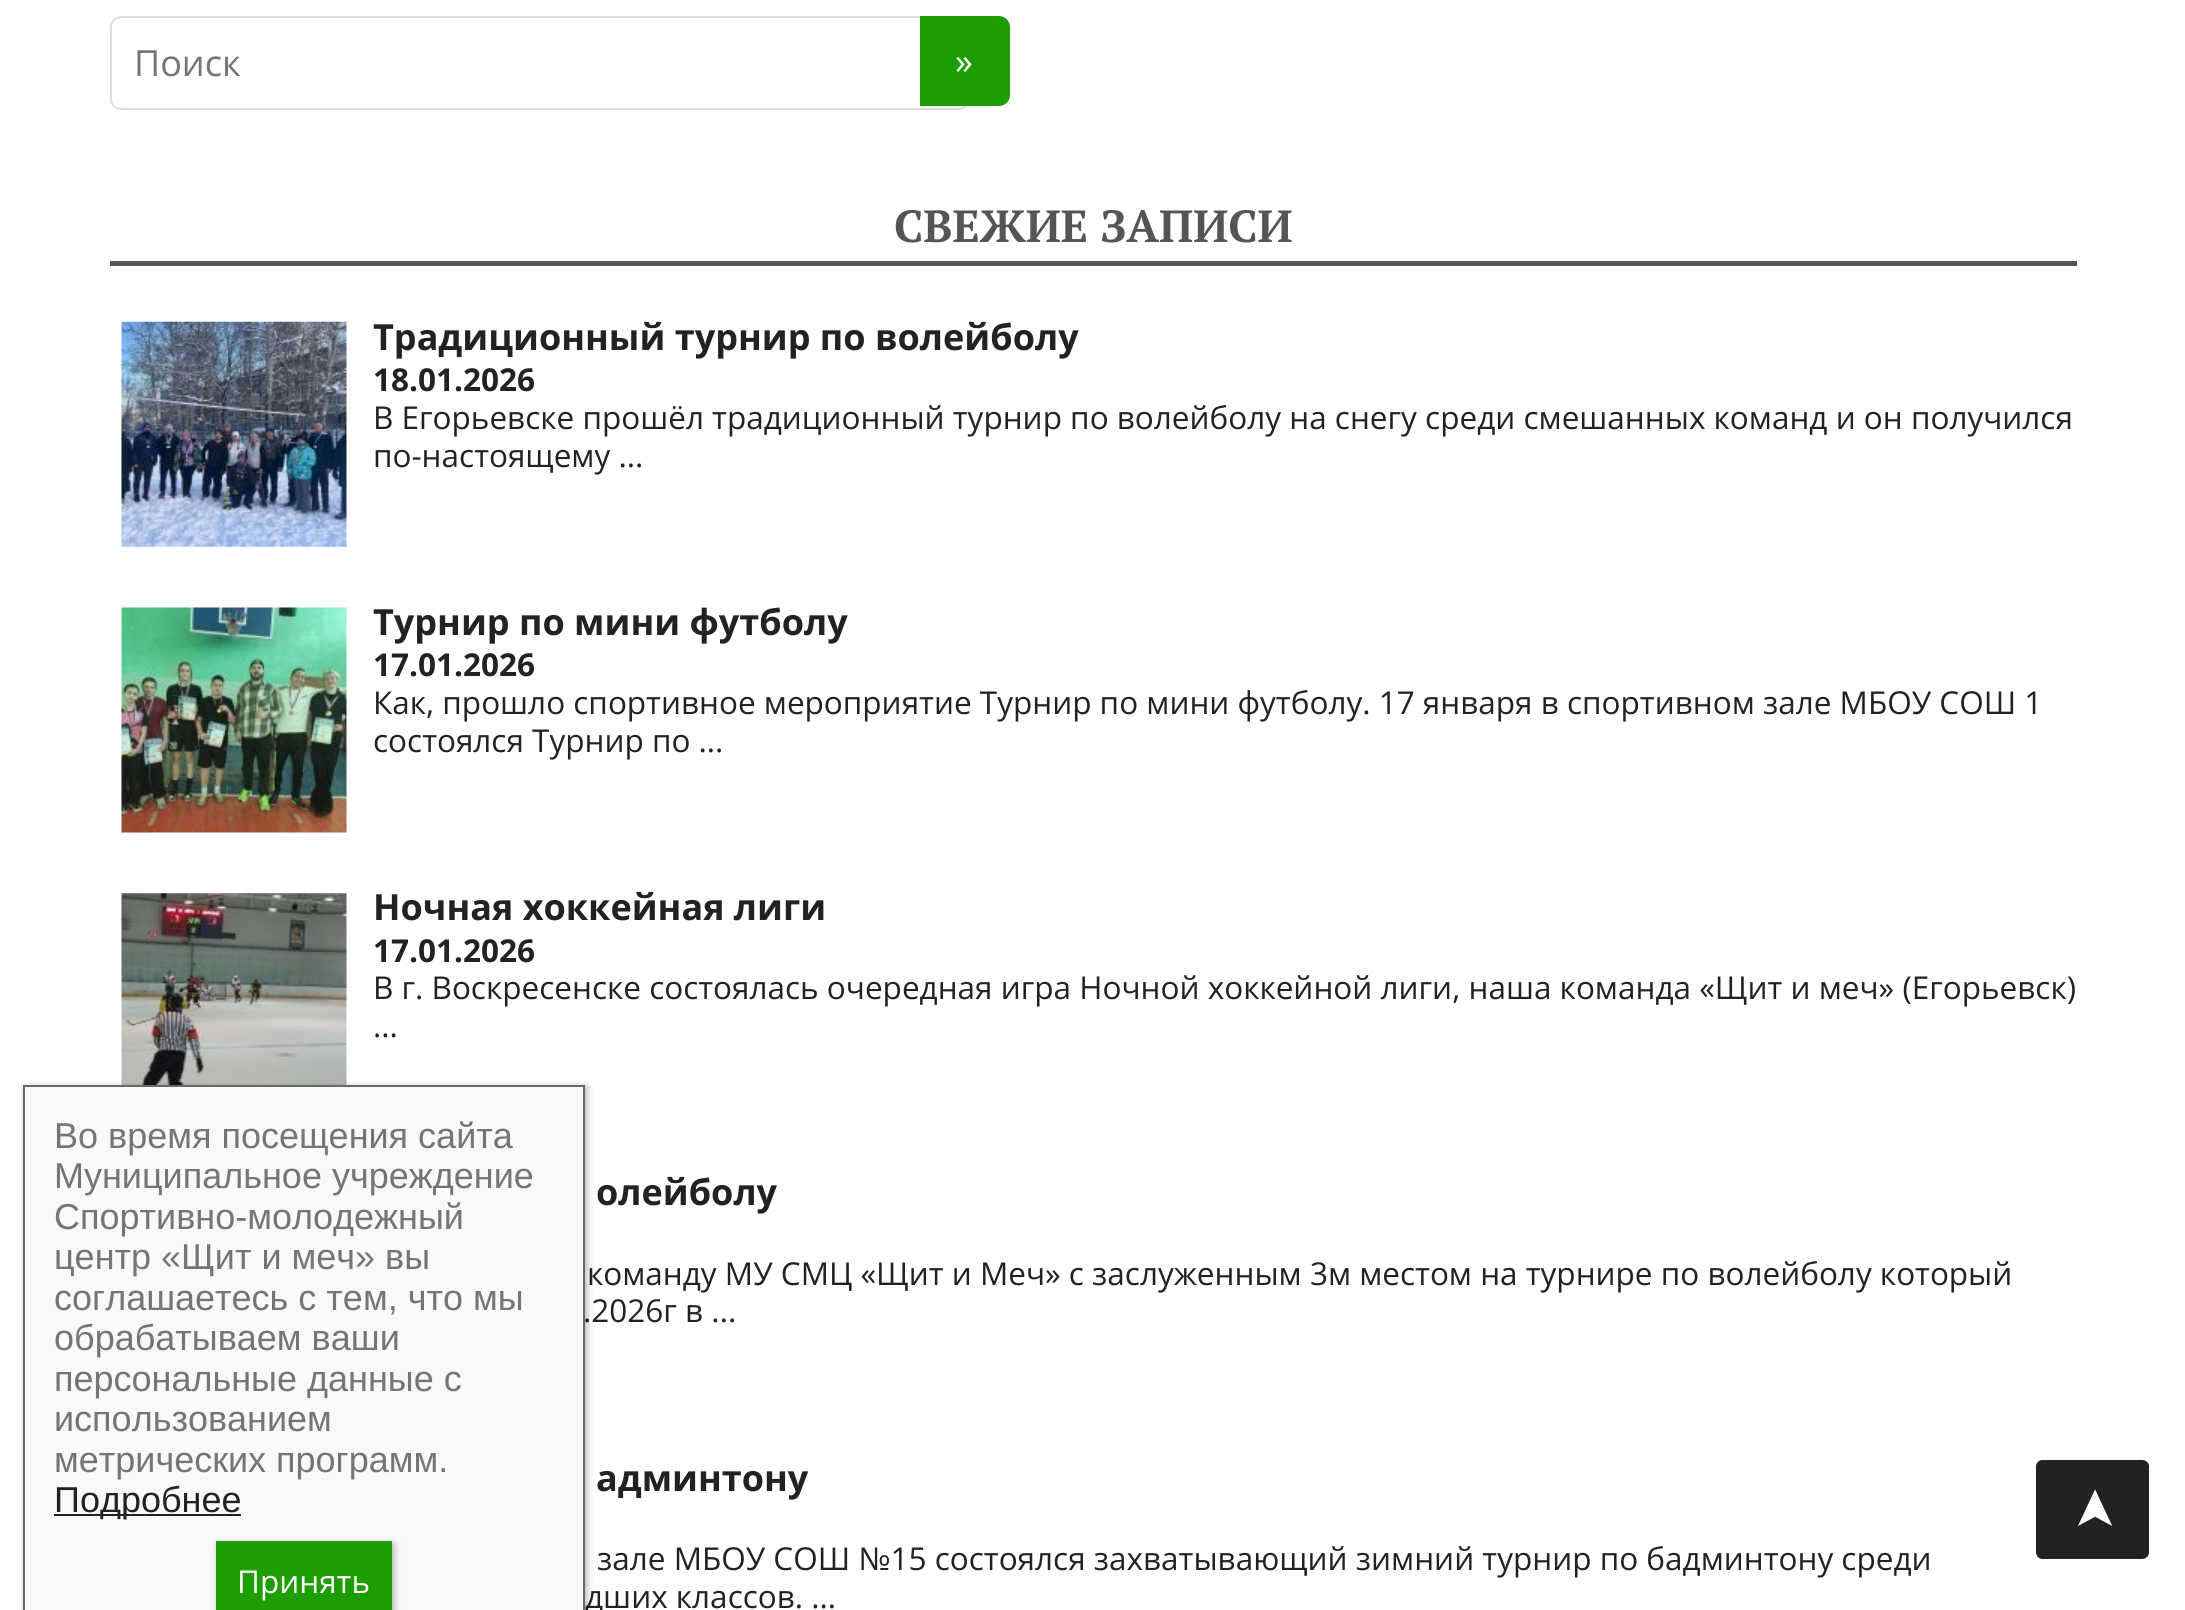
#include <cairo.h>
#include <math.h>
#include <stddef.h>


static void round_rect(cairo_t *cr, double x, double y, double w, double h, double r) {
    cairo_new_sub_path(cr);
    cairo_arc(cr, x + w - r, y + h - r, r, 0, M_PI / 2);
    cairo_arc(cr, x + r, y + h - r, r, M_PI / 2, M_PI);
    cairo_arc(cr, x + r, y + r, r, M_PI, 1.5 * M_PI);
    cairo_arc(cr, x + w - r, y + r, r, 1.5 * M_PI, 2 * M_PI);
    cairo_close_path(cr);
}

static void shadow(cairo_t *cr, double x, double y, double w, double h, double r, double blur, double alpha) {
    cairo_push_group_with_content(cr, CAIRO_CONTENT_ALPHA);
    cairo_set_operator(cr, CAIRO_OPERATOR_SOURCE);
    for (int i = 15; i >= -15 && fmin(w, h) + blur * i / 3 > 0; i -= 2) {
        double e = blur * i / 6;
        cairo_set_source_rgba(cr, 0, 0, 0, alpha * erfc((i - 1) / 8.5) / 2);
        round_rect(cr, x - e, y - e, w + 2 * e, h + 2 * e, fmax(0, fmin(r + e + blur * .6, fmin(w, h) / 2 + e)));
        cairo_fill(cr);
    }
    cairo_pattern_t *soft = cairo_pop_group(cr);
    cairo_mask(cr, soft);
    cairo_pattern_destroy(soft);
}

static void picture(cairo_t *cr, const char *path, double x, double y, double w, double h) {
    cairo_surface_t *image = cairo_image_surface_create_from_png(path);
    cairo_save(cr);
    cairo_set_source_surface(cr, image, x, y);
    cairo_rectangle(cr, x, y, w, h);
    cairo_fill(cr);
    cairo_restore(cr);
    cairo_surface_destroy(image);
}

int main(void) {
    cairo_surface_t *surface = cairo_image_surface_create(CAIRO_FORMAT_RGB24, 2185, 1610);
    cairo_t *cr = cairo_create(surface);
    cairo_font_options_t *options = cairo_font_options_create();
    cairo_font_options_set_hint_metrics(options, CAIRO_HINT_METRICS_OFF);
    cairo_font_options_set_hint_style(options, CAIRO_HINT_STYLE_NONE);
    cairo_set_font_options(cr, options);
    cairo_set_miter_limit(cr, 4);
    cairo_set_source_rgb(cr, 1, 1, 1);
    cairo_paint(cr);
    round_rect(cr, 111, 17, 858, 92, 10);
    cairo_set_source_rgb(cr, 0.867, 0.867, 0.867);
    cairo_stroke(cr);
    cairo_select_font_face(cr, "Open Sans", CAIRO_FONT_SLANT_NORMAL, CAIRO_FONT_WEIGHT_NORMAL);
    cairo_set_font_size(cr, 36);
    cairo_set_source_rgb(cr, 0.459, 0.459, 0.459);
    cairo_move_to(cr, 134, 76);
    cairo_show_text(cr, "Поиск");
    cairo_set_source_rgb(cr, 0.11, 0.62, 0);
    cairo_new_path(cr);
    cairo_move_to(cr, 920, 16);
    cairo_line_to(cr, 999, 16);
    cairo_curve_to(cr, 1005, 16, 1010, 21, 1010, 27);
    cairo_line_to(cr, 1010, 95);
    cairo_curve_to(cr, 1010, 101, 1005, 106, 999, 106);
    cairo_line_to(cr, 920, 106);
    cairo_close_path(cr);
    cairo_fill(cr);
    cairo_set_source_rgb(cr, 1, 1, 1);
    cairo_move_to(cr, 955, 74);
    cairo_show_text(cr, "»");
    cairo_set_source_rgb(cr, 0.333, 0.333, 0.333);
    cairo_rectangle(cr, 110, 261, 1967, 5);
    cairo_fill(cr);
    cairo_select_font_face(cr, "PT Serif", CAIRO_FONT_SLANT_NORMAL, CAIRO_FONT_WEIGHT_BOLD);
    cairo_set_font_size(cr, 45);
    cairo_move_to(cr, 894, 242);
    cairo_show_text(cr, "СВЕЖИЕ ЗАПИСИ");
    picture(cr, "img1.png", 121, 321, 226, 226);
    cairo_select_font_face(cr, "Open Sans", CAIRO_FONT_SLANT_NORMAL, CAIRO_FONT_WEIGHT_BOLD);
    cairo_set_font_size(cr, 36);
    cairo_set_source_rgb(cr, 0.133, 0.133, 0.133);
    cairo_move_to(cr, 373, 350);
    cairo_show_text(cr, "Традиционный турнир по волейболу");
    cairo_set_font_size(cr, 31.5);
    cairo_move_to(cr, 373, 391);
    cairo_show_text(cr, "18.01.2026");
    cairo_select_font_face(cr, "Open Sans", CAIRO_FONT_SLANT_NORMAL, CAIRO_FONT_WEIGHT_NORMAL);
    cairo_move_to(cr, 373, 429);
    cairo_show_text(cr, "В Егорьевске прошёл традиционный турнир по волейболу на снегу среди смешанных команд и он получился");
    cairo_move_to(cr, 373, 467);
    cairo_show_text(cr, "по-настоящему ...");
    picture(cr, "img2.png", 121, 607, 226, 226);
    cairo_select_font_face(cr, "Open Sans", CAIRO_FONT_SLANT_NORMAL, CAIRO_FONT_WEIGHT_BOLD);
    cairo_set_font_size(cr, 36);
    cairo_move_to(cr, 373, 635);
    cairo_show_text(cr, "Турнир по мини футболу");
    cairo_set_font_size(cr, 31.5);
    cairo_move_to(cr, 373, 676);
    cairo_show_text(cr, "17.01.2026");
    cairo_select_font_face(cr, "Open Sans", CAIRO_FONT_SLANT_NORMAL, CAIRO_FONT_WEIGHT_NORMAL);
    cairo_move_to(cr, 373, 714);
    cairo_show_text(cr, "Как, прошло спортивное мероприятие Турнир по мини футболу. 17 января в спортивном зале МБОУ СОШ 1");
    cairo_move_to(cr, 373, 752);
    cairo_show_text(cr, "состоялся Турнир по ...");
    picture(cr, "img3.png", 121, 893, 226, 192);
    cairo_select_font_face(cr, "Open Sans", CAIRO_FONT_SLANT_NORMAL, CAIRO_FONT_WEIGHT_BOLD);
    cairo_set_font_size(cr, 36);
    cairo_move_to(cr, 373, 920);
    cairo_show_text(cr, "Ночная хоккейная лиги");
    cairo_set_font_size(cr, 31.5);
    cairo_move_to(cr, 373, 962);
    cairo_show_text(cr, "17.01.2026");
    cairo_select_font_face(cr, "Open Sans", CAIRO_FONT_SLANT_NORMAL, CAIRO_FONT_WEIGHT_NORMAL);
    cairo_move_to(cr, 373, 999);
    cairo_show_text(cr, "В г. Воскресенске состоялась очередная игра Ночной хоккейной лиги, наша команда «Щит и меч» (Егорьевск)");
    cairo_move_to(cr, 373, 1037);
    cairo_show_text(cr, "...");
    cairo_select_font_face(cr, "Open Sans", CAIRO_FONT_SLANT_NORMAL, CAIRO_FONT_WEIGHT_BOLD);
    cairo_set_font_size(cr, 36);
    cairo_move_to(cr, 596, 1205);
    cairo_show_text(cr, "олейболу");
    cairo_select_font_face(cr, "Open Sans", CAIRO_FONT_SLANT_NORMAL, CAIRO_FONT_WEIGHT_NORMAL);
    cairo_set_font_size(cr, 31.5);
    cairo_move_to(cr, 587, 1285);
    cairo_show_text(cr, "команду МУ СМЦ «Щит и Меч» с заслуженным 3м местом на турнире по волейболу который");
    cairo_move_to(cr, 583, 1322);
    cairo_show_text(cr, ".2026г в ...");
    cairo_select_font_face(cr, "Open Sans", CAIRO_FONT_SLANT_NORMAL, CAIRO_FONT_WEIGHT_BOLD);
    cairo_set_font_size(cr, 36);
    cairo_move_to(cr, 596, 1491);
    cairo_show_text(cr, "админтону");
    cairo_select_font_face(cr, "Open Sans", CAIRO_FONT_SLANT_NORMAL, CAIRO_FONT_WEIGHT_NORMAL);
    cairo_set_font_size(cr, 31.5);
    cairo_move_to(cr, 597, 1570);
    cairo_show_text(cr, "зале МБОУ СОШ №15 состоялся захватывающий зимний турнир по бадминтону среди");
    cairo_move_to(cr, 585, 1608);
    cairo_show_text(cr, "дших классов. ...");
    cairo_set_source_rgb(cr, 0.008, 0.008, 0.008);
    shadow(cr, 25, 1087, 562, 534, 0, 3.5, 0.3);
    cairo_set_source_rgb(cr, 0.976, 0.976, 0.976);
    cairo_rectangle(cr, 24, 1086, 560, 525);
    cairo_fill_preserve(cr);
    cairo_set_source_rgb(cr, 0.408, 0.408, 0.408);
    cairo_stroke(cr);
    cairo_select_font_face(cr, "Liberation Sans", CAIRO_FONT_SLANT_NORMAL, CAIRO_FONT_WEIGHT_NORMAL);
    cairo_set_font_size(cr, 36);
    cairo_set_source_rgb(cr, 0.459, 0.459, 0.459);
    cairo_move_to(cr, 54, 1148);
    cairo_show_text(cr, "Во время посещения сайта");
    cairo_move_to(cr, 54, 1188);
    cairo_show_text(cr, "Муниципальное учреждение");
    cairo_move_to(cr, 54, 1229);
    cairo_show_text(cr, "Спортивно-молодежный");
    cairo_move_to(cr, 54, 1269);
    cairo_show_text(cr, "центр «Щит и меч» вы");
    cairo_move_to(cr, 54, 1310);
    cairo_show_text(cr, "соглашаетесь с тем, что мы");
    cairo_move_to(cr, 54, 1350);
    cairo_show_text(cr, "обрабатываем ваши");
    cairo_move_to(cr, 54, 1391);
    cairo_show_text(cr, "персональные данные с");
    cairo_move_to(cr, 54, 1431);
    cairo_show_text(cr, "использованием");
    cairo_move_to(cr, 54, 1472);
    cairo_show_text(cr, "метрических программ.");
    cairo_set_source_rgb(cr, 0.133, 0.133, 0.133);
    cairo_rectangle(cr, 54, 1514, 187, 2);
    cairo_fill(cr);
    cairo_move_to(cr, 54, 1512);
    cairo_show_text(cr, "Подробнее");
    cairo_set_source_rgb(cr, 0.008, 0.008, 0.008);
    shadow(cr, 218, 1544, 176, 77, 0, 3.5, 0.3);
    cairo_set_source_rgb(cr, 0.11, 0.62, 0);
    cairo_rectangle(cr, 216, 1541, 176, 69);
    cairo_fill(cr);
    cairo_select_font_face(cr, "Open Sans", CAIRO_FONT_SLANT_NORMAL, CAIRO_FONT_WEIGHT_NORMAL);
    cairo_set_font_size(cr, 31.5);
    cairo_set_source_rgb(cr, 1, 1, 1);
    cairo_move_to(cr, 237, 1593);
    cairo_show_text(cr, "Принять");
    cairo_set_source_rgb(cr, 0.133, 0.133, 0.133);
    cairo_new_path(cr);
    cairo_move_to(cr, 2036, 1552);
    cairo_line_to(cr, 2036, 1466);
    cairo_curve_to(cr, 2036, 1463, 2039, 1460, 2042, 1460);
    cairo_line_to(cr, 2142, 1460);
    cairo_curve_to(cr, 2146, 1460, 2149, 1463, 2149, 1466);
    cairo_line_to(cr, 2149, 1552);
    cairo_curve_to(cr, 2149, 1556, 2146, 1559, 2142, 1559);
    cairo_line_to(cr, 2042, 1559);
    cairo_curve_to(cr, 2039, 1559, 2036, 1556, 2036, 1552);
    cairo_close_path(cr);
    cairo_fill(cr);
    cairo_select_font_face(cr, "DejaVu Sans", CAIRO_FONT_SLANT_NORMAL, CAIRO_FONT_WEIGHT_NORMAL);
    cairo_set_font_size(cr, 54);
    cairo_set_source_rgb(cr, 1, 1, 1);
    cairo_save(cr);
    cairo_translate(cr, 2112, 1532);
    cairo_rotate(cr, -90 * M_PI / 180);
    cairo_move_to(cr, 0, 0);
    cairo_show_text(cr, "➤");
    cairo_restore(cr);
    cairo_surface_write_to_png(surface, "page.png");
    cairo_font_options_destroy(options);
    cairo_destroy(cr);
    cairo_surface_destroy(surface);
    return 0;
}
